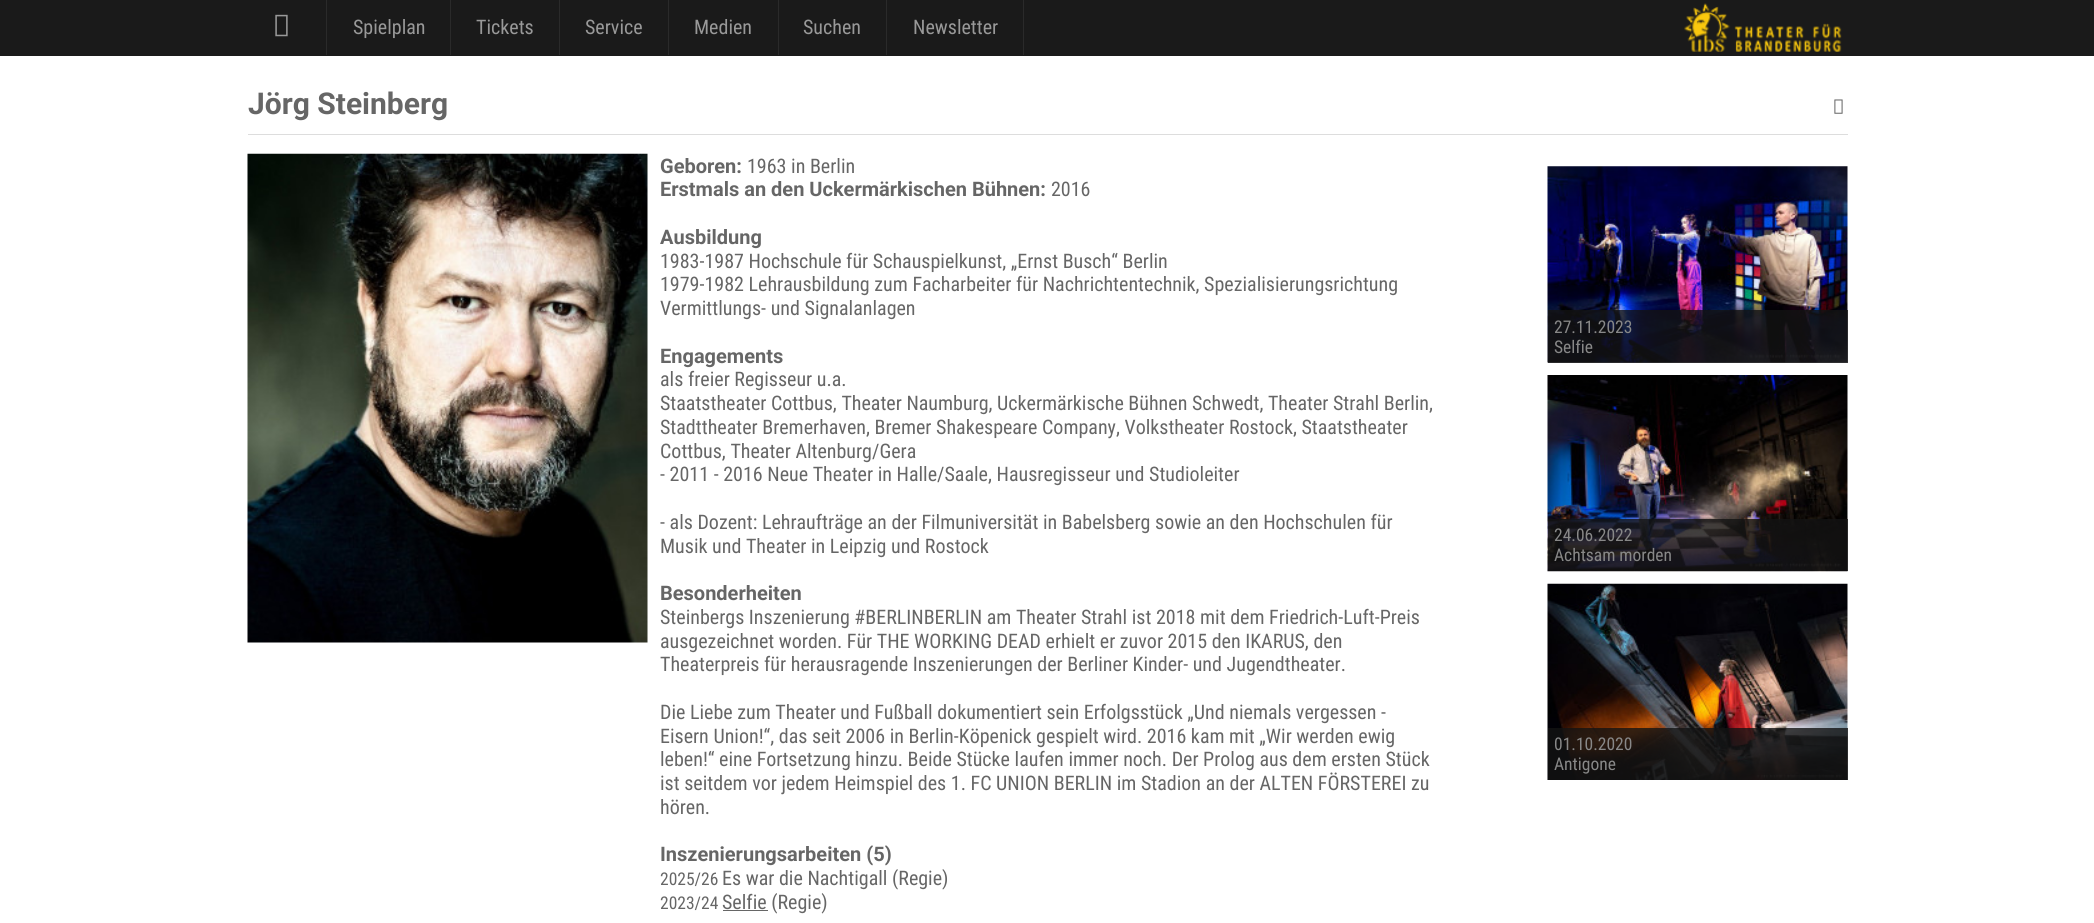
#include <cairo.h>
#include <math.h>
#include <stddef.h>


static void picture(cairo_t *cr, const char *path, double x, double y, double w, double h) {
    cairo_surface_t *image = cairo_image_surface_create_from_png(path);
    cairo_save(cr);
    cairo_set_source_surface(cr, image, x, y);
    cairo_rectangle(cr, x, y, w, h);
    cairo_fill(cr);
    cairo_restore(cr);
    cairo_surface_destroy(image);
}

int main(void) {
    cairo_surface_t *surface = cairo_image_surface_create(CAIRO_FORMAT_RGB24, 2094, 923);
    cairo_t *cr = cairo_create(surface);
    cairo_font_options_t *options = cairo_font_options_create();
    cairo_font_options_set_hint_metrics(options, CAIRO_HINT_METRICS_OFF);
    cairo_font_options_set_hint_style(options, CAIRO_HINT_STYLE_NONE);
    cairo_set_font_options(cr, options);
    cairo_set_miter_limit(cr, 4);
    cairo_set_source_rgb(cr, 1, 1, 1);
    cairo_paint(cr);
    cairo_set_source_rgb(cr, 0.102, 0.102, 0.102);
    cairo_rectangle(cr, 0, 0, 2094, 56);
    cairo_fill(cr);
    cairo_set_source_rgb(cr, 0.165, 0.165, 0.165);
    cairo_rectangle(cr, 326, 0, 1, 55);
    cairo_fill(cr);
    picture(cr, "img1.png", 275, 14, 13, 23);
    cairo_rectangle(cr, 450, 0, 1, 55);
    cairo_fill(cr);
    cairo_select_font_face(cr, "Roboto Condensed", CAIRO_FONT_SLANT_NORMAL, CAIRO_FONT_WEIGHT_NORMAL);
    cairo_set_font_size(cr, 20);
    cairo_set_source_rgb(cr, 0.6, 0.6, 0.6);
    cairo_move_to(cr, 353, 34);
    cairo_show_text(cr, "Spielplan");
    cairo_set_source_rgb(cr, 0.165, 0.165, 0.165);
    cairo_rectangle(cr, 559, 0, 1, 55);
    cairo_fill(cr);
    cairo_set_source_rgb(cr, 0.6, 0.6, 0.6);
    cairo_move_to(cr, 476, 34);
    cairo_show_text(cr, "Tickets");
    cairo_set_source_rgb(cr, 0.165, 0.165, 0.165);
    cairo_rectangle(cr, 668, 0, 1, 55);
    cairo_fill(cr);
    cairo_set_source_rgb(cr, 0.6, 0.6, 0.6);
    cairo_move_to(cr, 585, 34);
    cairo_show_text(cr, "Service");
    cairo_set_source_rgb(cr, 0.165, 0.165, 0.165);
    cairo_rectangle(cr, 778, 0, 1, 55);
    cairo_fill(cr);
    cairo_set_source_rgb(cr, 0.6, 0.6, 0.6);
    cairo_move_to(cr, 694, 34);
    cairo_show_text(cr, "Medien");
    cairo_set_source_rgb(cr, 0.165, 0.165, 0.165);
    cairo_rectangle(cr, 886, 0, 1, 55);
    cairo_fill(cr);
    cairo_set_source_rgb(cr, 0.6, 0.6, 0.6);
    cairo_move_to(cr, 803, 34);
    cairo_show_text(cr, "Suchen");
    cairo_set_source_rgb(cr, 0.165, 0.165, 0.165);
    cairo_rectangle(cr, 1023, 0, 1, 55);
    cairo_fill(cr);
    cairo_set_source_rgb(cr, 0.6, 0.6, 0.6);
    cairo_move_to(cr, 913, 34);
    cairo_show_text(cr, "Newsletter");
    picture(cr, "img2.png", 1684, 3, 158, 49);
    cairo_set_source_rgb(cr, 0.867, 0.867, 0.867);
    cairo_rectangle(cr, 248, 134, 1600, 1);
    cairo_fill(cr);
    cairo_select_font_face(cr, "Roboto", CAIRO_FONT_SLANT_NORMAL, CAIRO_FONT_WEIGHT_BOLD);
    cairo_set_font_size(cr, 30);
    cairo_set_source_rgb(cr, 0.4, 0.4, 0.4);
    cairo_move_to(cr, 248, 114);
    cairo_show_text(cr, "Jörg Steinberg");
    picture(cr, "img3.png", 1834, 99, 9, 15);
    picture(cr, "img4.png", 247, 153, 401, 490);
    cairo_set_font_size(cr, 20);
    cairo_move_to(cr, 660, 173);
    cairo_show_text(cr, "Geboren:");
    cairo_select_font_face(cr, "Roboto Condensed", CAIRO_FONT_SLANT_NORMAL, CAIRO_FONT_WEIGHT_NORMAL);
    cairo_move_to(cr, 747, 173);
    cairo_show_text(cr, "1963 in Berlin");
    cairo_select_font_face(cr, "Roboto", CAIRO_FONT_SLANT_NORMAL, CAIRO_FONT_WEIGHT_BOLD);
    cairo_move_to(cr, 660, 196);
    cairo_show_text(cr, "Erstmals an den Uckermärkischen Bühnen:");
    cairo_select_font_face(cr, "Roboto Condensed", CAIRO_FONT_SLANT_NORMAL, CAIRO_FONT_WEIGHT_NORMAL);
    cairo_move_to(cr, 1051, 196);
    cairo_show_text(cr, "2016");
    cairo_select_font_face(cr, "Roboto", CAIRO_FONT_SLANT_NORMAL, CAIRO_FONT_WEIGHT_BOLD);
    cairo_move_to(cr, 660, 244);
    cairo_show_text(cr, "Ausbildung");
    cairo_select_font_face(cr, "Roboto Condensed", CAIRO_FONT_SLANT_NORMAL, CAIRO_FONT_WEIGHT_NORMAL);
    cairo_move_to(cr, 660, 268);
    cairo_show_text(cr, "1983-1987 Hochschule für Schauspielkunst, „Ernst Busch“ Berlin");
    cairo_move_to(cr, 660, 291);
    cairo_show_text(cr, "1979-1982 Lehrausbildung zum Facharbeiter für Nachrichtentechnik, Spezialisierungsrichtung");
    cairo_move_to(cr, 660, 315);
    cairo_show_text(cr, "Vermittlungs- und Signalanlagen");
    cairo_select_font_face(cr, "Roboto", CAIRO_FONT_SLANT_NORMAL, CAIRO_FONT_WEIGHT_BOLD);
    cairo_move_to(cr, 660, 363);
    cairo_show_text(cr, "Engagements");
    cairo_select_font_face(cr, "Roboto Condensed", CAIRO_FONT_SLANT_NORMAL, CAIRO_FONT_WEIGHT_NORMAL);
    cairo_move_to(cr, 660, 386);
    cairo_show_text(cr, "als freier Regisseur u.a.");
    cairo_move_to(cr, 660, 410);
    cairo_show_text(cr, "Staatstheater Cottbus, Theater Naumburg, Uckermärkische Bühnen Schwedt, Theater Strahl Berlin,");
    cairo_move_to(cr, 660, 434);
    cairo_show_text(cr, "Stadttheater Bremerhaven, Bremer Shakespeare Company, Volkstheater Rostock, Staatstheater");
    cairo_move_to(cr, 660, 458);
    cairo_show_text(cr, "Cottbus, Theater Altenburg/Gera");
    cairo_move_to(cr, 660, 481);
    cairo_show_text(cr, "- 2011 - 2016 Neue Theater in Halle/Saale, Hausregisseur und Studioleiter");
    cairo_move_to(cr, 660, 529);
    cairo_show_text(cr, "- als Dozent: Lehraufträge an der Filmuniversität in Babelsberg sowie an den Hochschulen für");
    cairo_move_to(cr, 660, 553);
    cairo_show_text(cr, "Musik und Theater in Leipzig und Rostock");
    cairo_select_font_face(cr, "Roboto", CAIRO_FONT_SLANT_NORMAL, CAIRO_FONT_WEIGHT_BOLD);
    cairo_move_to(cr, 660, 600);
    cairo_show_text(cr, "Besonderheiten");
    cairo_select_font_face(cr, "Roboto Condensed", CAIRO_FONT_SLANT_NORMAL, CAIRO_FONT_WEIGHT_NORMAL);
    cairo_move_to(cr, 660, 624);
    cairo_show_text(cr, "Steinbergs Inszenierung #BERLINBERLIN am Theater Strahl ist 2018 mit dem Friedrich-Luft-Preis");
    cairo_move_to(cr, 660, 648);
    cairo_show_text(cr, "ausgezeichnet worden. Für THE WORKING DEAD erhielt er zuvor 2015 den IKARUS, den");
    cairo_move_to(cr, 660, 671);
    cairo_show_text(cr, "Theaterpreis für herausragende Inszenierungen der Berliner Kinder- und Jugendtheater.");
    cairo_move_to(cr, 660, 719);
    cairo_show_text(cr, "Die Liebe zum Theater und Fußball dokumentiert sein Erfolgsstück „Und niemals vergessen -");
    cairo_move_to(cr, 660, 743);
    cairo_show_text(cr, "Eisern Union!“, das seit 2006 in Berlin-Köpenick gespielt wird. 2016 kam mit „Wir werden ewig");
    cairo_move_to(cr, 660, 766);
    cairo_show_text(cr, "leben!“ eine Fortsetzung hinzu. Beide Stücke laufen immer noch. Der Prolog aus dem ersten Stück");
    cairo_move_to(cr, 660, 790);
    cairo_show_text(cr, "ist seitdem vor jedem Heimspiel des 1. FC UNION BERLIN im Stadion an der ALTEN FÖRSTEREI zu");
    cairo_move_to(cr, 660, 814);
    cairo_show_text(cr, "hören.");
    cairo_select_font_face(cr, "Roboto", CAIRO_FONT_SLANT_NORMAL, CAIRO_FONT_WEIGHT_BOLD);
    cairo_move_to(cr, 660, 861);
    cairo_show_text(cr, "Inszenierungsarbeiten (5)");
    cairo_select_font_face(cr, "Roboto Condensed", CAIRO_FONT_SLANT_NORMAL, CAIRO_FONT_WEIGHT_NORMAL);
    cairo_set_font_size(cr, 17.5);
    cairo_move_to(cr, 660, 885);
    cairo_show_text(cr, "2025/26");
    cairo_set_font_size(cr, 20);
    cairo_move_to(cr, 722, 885);
    cairo_show_text(cr, "Es war die Nachtigall (Regie)");
    cairo_set_font_size(cr, 17.5);
    cairo_move_to(cr, 660, 909);
    cairo_show_text(cr, "2023/24");
    cairo_rectangle(cr, 723, 910, 45, 1);
    cairo_fill(cr);
    cairo_set_font_size(cr, 20);
    cairo_move_to(cr, 722, 909);
    cairo_show_text(cr, "Selfie (Regie)");
    picture(cr, "img5.png", 1547, 166, 301, 197);
    cairo_set_source_rgba(cr, 0.078, 0.078, 0.078, 0.8);
    cairo_rectangle(cr, 1548, 310, 300, 53);
    cairo_fill(cr);
    cairo_set_font_size(cr, 17.5);
    cairo_set_source_rgb(cr, 0.533, 0.533, 0.533);
    cairo_move_to(cr, 1554, 333);
    cairo_show_text(cr, "27.11.2023");
    cairo_move_to(cr, 1554, 353);
    cairo_show_text(cr, "Selfie");
    picture(cr, "img6.png", 1547, 375, 301, 197);
    cairo_set_source_rgba(cr, 0.078, 0.078, 0.078, 0.8);
    cairo_rectangle(cr, 1548, 519, 300, 52);
    cairo_fill(cr);
    cairo_set_source_rgb(cr, 0.533, 0.533, 0.533);
    cairo_move_to(cr, 1554, 541);
    cairo_show_text(cr, "24.06.2022");
    cairo_move_to(cr, 1554, 561);
    cairo_show_text(cr, "Achtsam morden");
    picture(cr, "img7.png", 1547, 583, 301, 197);
    cairo_set_source_rgba(cr, 0.078, 0.078, 0.078, 0.8);
    cairo_rectangle(cr, 1548, 728, 300, 52);
    cairo_fill(cr);
    cairo_set_source_rgb(cr, 0.533, 0.533, 0.533);
    cairo_move_to(cr, 1554, 750);
    cairo_show_text(cr, "01.10.2020");
    cairo_move_to(cr, 1554, 770);
    cairo_show_text(cr, "Antigone");
    cairo_surface_write_to_png(surface, "page.png");
    cairo_font_options_destroy(options);
    cairo_destroy(cr);
    cairo_surface_destroy(surface);
    return 0;
}
